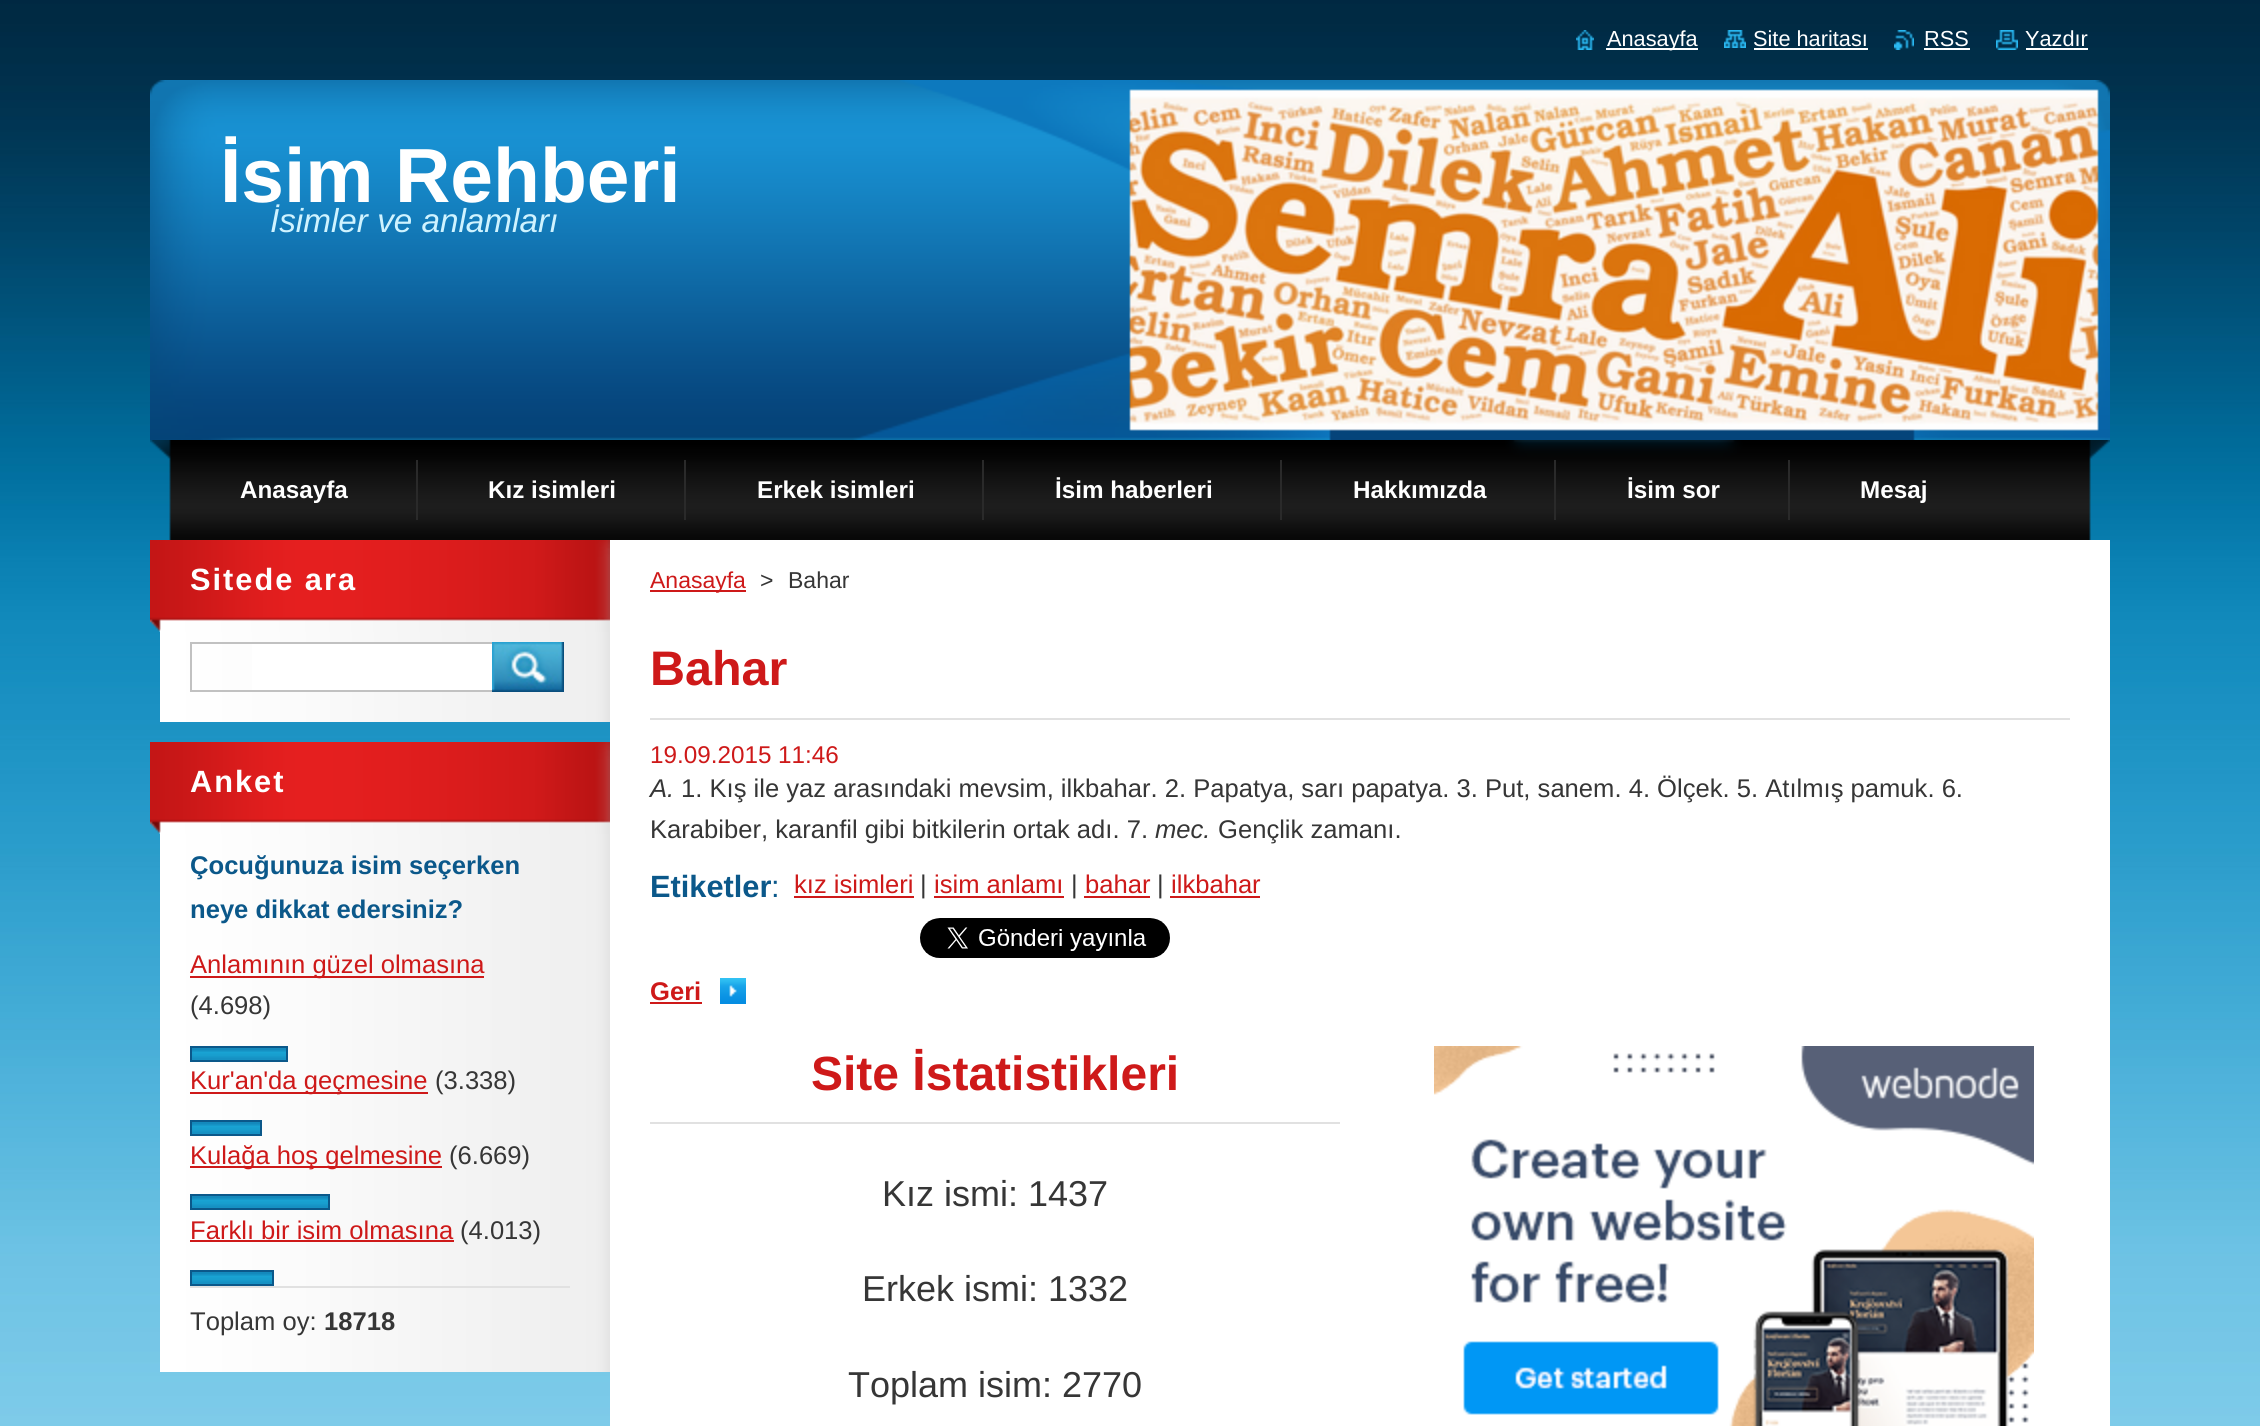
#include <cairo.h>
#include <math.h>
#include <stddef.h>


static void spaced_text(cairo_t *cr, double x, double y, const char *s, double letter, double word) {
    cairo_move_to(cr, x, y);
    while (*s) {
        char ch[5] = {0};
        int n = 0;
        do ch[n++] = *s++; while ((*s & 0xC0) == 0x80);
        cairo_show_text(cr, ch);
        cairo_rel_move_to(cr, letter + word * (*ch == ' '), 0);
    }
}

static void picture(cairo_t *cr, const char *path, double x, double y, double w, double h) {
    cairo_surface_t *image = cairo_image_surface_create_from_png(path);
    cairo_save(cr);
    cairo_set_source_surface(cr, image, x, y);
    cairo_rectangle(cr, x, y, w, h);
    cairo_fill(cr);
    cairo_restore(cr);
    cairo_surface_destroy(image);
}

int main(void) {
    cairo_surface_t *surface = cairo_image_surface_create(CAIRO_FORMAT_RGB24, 2260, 1426);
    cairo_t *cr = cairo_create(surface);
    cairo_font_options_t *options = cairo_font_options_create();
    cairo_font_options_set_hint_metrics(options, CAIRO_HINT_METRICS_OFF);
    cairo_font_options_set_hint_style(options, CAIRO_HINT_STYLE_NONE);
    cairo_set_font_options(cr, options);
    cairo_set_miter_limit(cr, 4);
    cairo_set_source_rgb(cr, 1, 1, 1);
    cairo_paint(cr);
    picture(cr, "img1.png", 0, 0, 2260, 1426);
    picture(cr, "img2.png", 1576, 30, 18, 20);
    cairo_set_source_rgb(cr, 1, 1, 1);
    cairo_rectangle(cr, 1606, 48, 92, 2);
    cairo_fill(cr);
    cairo_select_font_face(cr, "Liberation Sans", CAIRO_FONT_SLANT_NORMAL, CAIRO_FONT_WEIGHT_NORMAL);
    cairo_set_font_size(cr, 21.75);
    cairo_move_to(cr, 1607, 46);
    cairo_show_text(cr, "Anasayfa");
    picture(cr, "img3.png", 1724, 30, 22, 18);
    cairo_move_to(cr, 1753, 46);
    cairo_show_text(cr, "Site haritası");
    cairo_rectangle(cr, 1754, 48, 114, 2);
    cairo_fill(cr);
    picture(cr, "img4.png", 1894, 30, 20, 20);
    cairo_move_to(cr, 1924, 46);
    cairo_show_text(cr, "RSS");
    cairo_rectangle(cr, 1924, 48, 46, 2);
    cairo_fill(cr);
    picture(cr, "img5.png", 1996, 30, 22, 20);
    cairo_move_to(cr, 2025, 46);
    cairo_show_text(cr, "Yazdır");
    cairo_rectangle(cr, 2026, 48, 62, 2);
    cairo_fill(cr);
    picture(cr, "img6.png", 150, 80, 1960, 360);
    cairo_select_font_face(cr, "Liberation Sans", CAIRO_FONT_SLANT_NORMAL, CAIRO_FONT_WEIGHT_BOLD);
    cairo_set_font_size(cr, 76.75);
    cairo_move_to(cr, 220, 202);
    cairo_show_text(cr, "İsim Rehberi");
    cairo_select_font_face(cr, "Liberation Sans", CAIRO_FONT_SLANT_ITALIC, CAIRO_FONT_WEIGHT_NORMAL);
    cairo_set_font_size(cr, 33.25);
    cairo_set_source_rgb(cr, 0.812, 0.953, 1);
    cairo_move_to(cr, 270, 232);
    cairo_show_text(cr, "İsimler ve anlamları");
    picture(cr, "img7.png", 150, 440, 1960, 100);
    cairo_set_source_rgb(cr, 0.165, 0.165, 0.165);
    cairo_rectangle(cr, 416, 460, 2, 60);
    cairo_fill(cr);
    cairo_select_font_face(cr, "Liberation Sans", CAIRO_FONT_SLANT_NORMAL, CAIRO_FONT_WEIGHT_BOLD);
    cairo_set_font_size(cr, 24.25);
    cairo_set_source_rgb(cr, 1, 1, 1);
    cairo_move_to(cr, 240, 498);
    cairo_show_text(cr, "Anasayfa");
    cairo_set_source_rgb(cr, 0.165, 0.165, 0.165);
    cairo_rectangle(cr, 684, 460, 2, 60);
    cairo_fill(cr);
    cairo_set_source_rgb(cr, 1, 1, 1);
    cairo_move_to(cr, 488, 498);
    cairo_show_text(cr, "Kız isimleri");
    cairo_set_source_rgb(cr, 0.165, 0.165, 0.165);
    cairo_rectangle(cr, 982, 460, 2, 60);
    cairo_fill(cr);
    cairo_set_source_rgb(cr, 1, 1, 1);
    cairo_move_to(cr, 757, 498);
    cairo_show_text(cr, "Erkek isimleri");
    cairo_set_source_rgb(cr, 0.165, 0.165, 0.165);
    cairo_rectangle(cr, 1280, 460, 2, 60);
    cairo_fill(cr);
    cairo_set_source_rgb(cr, 1, 1, 1);
    cairo_move_to(cr, 1055, 498);
    cairo_show_text(cr, "İsim haberleri");
    cairo_set_source_rgb(cr, 0.165, 0.165, 0.165);
    cairo_rectangle(cr, 1554, 460, 2, 60);
    cairo_fill(cr);
    cairo_set_source_rgb(cr, 1, 1, 1);
    cairo_move_to(cr, 1353, 498);
    cairo_show_text(cr, "Hakkımızda");
    cairo_set_source_rgb(cr, 0.165, 0.165, 0.165);
    cairo_rectangle(cr, 1788, 460, 2, 60);
    cairo_fill(cr);
    cairo_set_source_rgb(cr, 1, 1, 1);
    cairo_move_to(cr, 1627, 498);
    cairo_show_text(cr, "İsim sor");
    cairo_move_to(cr, 1860, 498);
    cairo_show_text(cr, "Mesaj");
    picture(cr, "img8.png", 160, 629, 450, 93);
    picture(cr, "img9.png", 150, 540, 460, 92);
    cairo_set_font_size(cr, 30.75);
    spaced_text(cr, 190, 590, "Sitede ara", 2, 0);
    cairo_rectangle(cr, 252, 644, 240, 46);
    cairo_fill(cr);
    cairo_rectangle(cr, 191, 643, 302, 48);
    cairo_set_source_rgb(cr, 0.757, 0.757, 0.757);
    cairo_stroke(cr);
    picture(cr, "img10.png", 492, 642, 72, 50);
    picture(cr, "img11.png", 160, 831, 450, 541);
    picture(cr, "img12.png", 150, 742, 460, 92);
    cairo_set_source_rgb(cr, 1, 1, 1);
    spaced_text(cr, 190, 792, "Anket", 2, 0);
    cairo_set_font_size(cr, 25.6);
    cairo_set_source_rgb(cr, 0.043, 0.345, 0.541);
    cairo_move_to(cr, 190, 874);
    cairo_show_text(cr, "Çocuğunuza isim seçerken");
    cairo_move_to(cr, 190, 918);
    cairo_show_text(cr, "neye dikkat edersiniz?");
    cairo_set_source_rgb(cr, 0.808, 0.098, 0.098);
    cairo_rectangle(cr, 190, 976, 294, 2);
    cairo_fill(cr);
    cairo_select_font_face(cr, "Liberation Sans", CAIRO_FONT_SLANT_NORMAL, CAIRO_FONT_WEIGHT_NORMAL);
    cairo_move_to(cr, 190, 973);
    cairo_show_text(cr, "Anlamının güzel olmasına");
    cairo_set_source_rgb(cr, 0.212, 0.212, 0.212);
    cairo_move_to(cr, 190, 1014);
    cairo_show_text(cr, "(4.698)");
    cairo_rectangle(cr, 191, 1047, 96, 14);
    cairo_set_source_rgb(cr, 0.043, 0.345, 0.541);
    cairo_stroke(cr);
    picture(cr, "img13.png", 192, 1048, 94, 12);
    cairo_set_source_rgb(cr, 0.808, 0.098, 0.098);
    cairo_rectangle(cr, 190, 1092, 238, 2);
    cairo_fill(cr);
    cairo_move_to(cr, 190, 1089);
    cairo_show_text(cr, "Kur'an'da geçmesine");
    cairo_set_source_rgb(cr, 0.212, 0.212, 0.212);
    cairo_move_to(cr, 435, 1089);
    cairo_show_text(cr, "(3.338)");
    cairo_rectangle(cr, 191, 1121, 70, 14);
    cairo_set_source_rgb(cr, 0.043, 0.345, 0.541);
    cairo_stroke(cr);
    picture(cr, "img14.png", 192, 1122, 68, 12);
    cairo_set_source_rgb(cr, 0.808, 0.098, 0.098);
    cairo_rectangle(cr, 190, 1166, 252, 2);
    cairo_fill(cr);
    cairo_move_to(cr, 190, 1164);
    cairo_show_text(cr, "Kulağa hoş gelmesine");
    cairo_set_source_rgb(cr, 0.212, 0.212, 0.212);
    cairo_move_to(cr, 449, 1164);
    cairo_show_text(cr, "(6.669)");
    cairo_rectangle(cr, 191, 1195, 138, 14);
    cairo_set_source_rgb(cr, 0.043, 0.345, 0.541);
    cairo_stroke(cr);
    picture(cr, "img15.png", 192, 1196, 136, 12);
    cairo_set_source_rgb(cr, 0.808, 0.098, 0.098);
    cairo_move_to(cr, 190, 1239);
    cairo_show_text(cr, "Farklı bir isim olmasına");
    cairo_rectangle(cr, 190, 1240, 264, 2);
    cairo_fill(cr);
    cairo_set_source_rgb(cr, 0.212, 0.212, 0.212);
    cairo_move_to(cr, 460, 1239);
    cairo_show_text(cr, "(4.013)");
    cairo_rectangle(cr, 191, 1271, 82, 14);
    cairo_set_source_rgb(cr, 0.043, 0.345, 0.541);
    cairo_stroke(cr);
    picture(cr, "img16.png", 192, 1272, 80, 12);
    cairo_set_source_rgb(cr, 0.882, 0.882, 0.882);
    cairo_rectangle(cr, 190, 1286, 380, 2);
    cairo_fill(cr);
    cairo_set_source_rgb(cr, 0.212, 0.212, 0.212);
    cairo_move_to(cr, 190, 1330);
    cairo_show_text(cr, "Toplam oy:");
    cairo_select_font_face(cr, "Liberation Sans", CAIRO_FONT_SLANT_NORMAL, CAIRO_FONT_WEIGHT_BOLD);
    cairo_move_to(cr, 324, 1330);
    cairo_show_text(cr, "18718");
    cairo_set_source_rgb(cr, 1, 1, 1);
    cairo_rectangle(cr, 610, 540, 1500, 886);
    cairo_fill(cr);
    cairo_set_source_rgb(cr, 0.808, 0.098, 0.098);
    cairo_rectangle(cr, 650, 590, 96, 2);
    cairo_fill(cr);
    cairo_select_font_face(cr, "Liberation Sans", CAIRO_FONT_SLANT_NORMAL, CAIRO_FONT_WEIGHT_NORMAL);
    cairo_set_font_size(cr, 23);
    cairo_move_to(cr, 650, 588);
    cairo_show_text(cr, "Anasayfa");
    cairo_set_source_rgb(cr, 0.212, 0.212, 0.212);
    cairo_move_to(cr, 760, 588);
    cairo_show_text(cr, ">");
    cairo_move_to(cr, 788, 588);
    cairo_show_text(cr, "Bahar");
    cairo_set_source_rgb(cr, 0.882, 0.882, 0.882);
    cairo_rectangle(cr, 650, 718, 1420, 2);
    cairo_fill(cr);
    cairo_select_font_face(cr, "Liberation Sans", CAIRO_FONT_SLANT_NORMAL, CAIRO_FONT_WEIGHT_BOLD);
    cairo_set_font_size(cr, 48.5);
    cairo_set_source_rgb(cr, 0.808, 0.098, 0.098);
    cairo_move_to(cr, 650, 685);
    cairo_show_text(cr, "Bahar");
    cairo_select_font_face(cr, "Liberation Sans", CAIRO_FONT_SLANT_NORMAL, CAIRO_FONT_WEIGHT_NORMAL);
    cairo_set_font_size(cr, 24.25);
    cairo_move_to(cr, 650, 763);
    cairo_show_text(cr, "19.09.2015 11:46");
    cairo_select_font_face(cr, "Liberation Sans", CAIRO_FONT_SLANT_ITALIC, CAIRO_FONT_WEIGHT_NORMAL);
    cairo_set_font_size(cr, 25.6);
    cairo_set_source_rgb(cr, 0.212, 0.212, 0.212);
    cairo_move_to(cr, 650, 797);
    cairo_show_text(cr, "A.");
    cairo_select_font_face(cr, "Liberation Sans", CAIRO_FONT_SLANT_NORMAL, CAIRO_FONT_WEIGHT_NORMAL);
    cairo_move_to(cr, 681, 797);
    cairo_show_text(cr, "1. Kış ile yaz arasındaki mevsim, ilkbahar. 2. Papatya, sarı papatya. 3. Put, sanem. 4. Ölçek. 5. Atılmış pamuk. 6.");
    cairo_move_to(cr, 650, 838);
    cairo_show_text(cr, "Karabiber, karanfil gibi bitkilerin ortak adı. 7.");
    cairo_select_font_face(cr, "Liberation Sans", CAIRO_FONT_SLANT_ITALIC, CAIRO_FONT_WEIGHT_NORMAL);
    cairo_move_to(cr, 1155, 838);
    cairo_show_text(cr, "mec.");
    cairo_select_font_face(cr, "Liberation Sans", CAIRO_FONT_SLANT_NORMAL, CAIRO_FONT_WEIGHT_NORMAL);
    cairo_move_to(cr, 1218, 838);
    cairo_show_text(cr, "Gençlik zamanı.");
    cairo_select_font_face(cr, "Liberation Sans", CAIRO_FONT_SLANT_NORMAL, CAIRO_FONT_WEIGHT_BOLD);
    cairo_set_font_size(cr, 30.75);
    cairo_set_source_rgb(cr, 0.043, 0.345, 0.541);
    cairo_move_to(cr, 650, 897);
    cairo_show_text(cr, "Etiketler");
    cairo_select_font_face(cr, "Liberation Sans", CAIRO_FONT_SLANT_NORMAL, CAIRO_FONT_WEIGHT_NORMAL);
    cairo_move_to(cr, 771, 897);
    cairo_show_text(cr, ":");
    cairo_set_font_size(cr, 25.6);
    cairo_set_source_rgb(cr, 0.808, 0.098, 0.098);
    cairo_move_to(cr, 794, 893);
    cairo_show_text(cr, "kız isimleri");
    cairo_rectangle(cr, 794, 896, 120, 2);
    cairo_fill(cr);
    cairo_set_source_rgb(cr, 0.212, 0.212, 0.212);
    cairo_move_to(cr, 920, 893);
    cairo_show_text(cr, "|");
    cairo_set_source_rgb(cr, 0.808, 0.098, 0.098);
    cairo_move_to(cr, 934, 893);
    cairo_show_text(cr, "isim anlamı");
    cairo_rectangle(cr, 934, 896, 130, 2);
    cairo_fill(cr);
    cairo_set_source_rgb(cr, 0.212, 0.212, 0.212);
    cairo_move_to(cr, 1071, 893);
    cairo_show_text(cr, "|");
    cairo_set_source_rgb(cr, 0.808, 0.098, 0.098);
    cairo_move_to(cr, 1085, 893);
    cairo_show_text(cr, "bahar");
    cairo_rectangle(cr, 1084, 896, 66, 2);
    cairo_fill(cr);
    cairo_set_source_rgb(cr, 0.212, 0.212, 0.212);
    cairo_move_to(cr, 1157, 893);
    cairo_show_text(cr, "|");
    cairo_set_source_rgb(cr, 0.808, 0.098, 0.098);
    cairo_move_to(cr, 1171, 893);
    cairo_show_text(cr, "ilkbahar");
    cairo_rectangle(cr, 1170, 896, 90, 2);
    cairo_fill(cr);
    picture(cr, "img17.png", 920, 918, 250, 40);
    picture(cr, "img18.png", 720, 978, 26, 26);
    cairo_select_font_face(cr, "Liberation Sans", CAIRO_FONT_SLANT_NORMAL, CAIRO_FONT_WEIGHT_BOLD);
    cairo_move_to(cr, 650, 1000);
    cairo_show_text(cr, "Geri");
    cairo_rectangle(cr, 650, 1002, 52, 2);
    cairo_fill(cr);
    cairo_set_source_rgb(cr, 0.882, 0.882, 0.882);
    cairo_rectangle(cr, 650, 1122, 690, 2);
    cairo_fill(cr);
    cairo_set_font_size(cr, 48);
    cairo_set_source_rgb(cr, 0.808, 0.098, 0.098);
    cairo_move_to(cr, 811, 1090);
    cairo_show_text(cr, "Site İstatistikleri");
    cairo_select_font_face(cr, "Liberation Sans", CAIRO_FONT_SLANT_NORMAL, CAIRO_FONT_WEIGHT_NORMAL);
    cairo_set_font_size(cr, 36);
    cairo_set_source_rgb(cr, 0.212, 0.212, 0.212);
    cairo_move_to(cr, 882, 1206);
    cairo_show_text(cr, "Kız ismi: 1437");
    cairo_move_to(cr, 862, 1301);
    cairo_show_text(cr, "Erkek ismi: 1332");
    cairo_move_to(cr, 848, 1397);
    cairo_show_text(cr, "Toplam isim: 2770");
    picture(cr, "img19.png", 1434, 1046, 600, 380);
    cairo_surface_write_to_png(surface, "page.png");
    cairo_font_options_destroy(options);
    cairo_destroy(cr);
    cairo_surface_destroy(surface);
    return 0;
}
